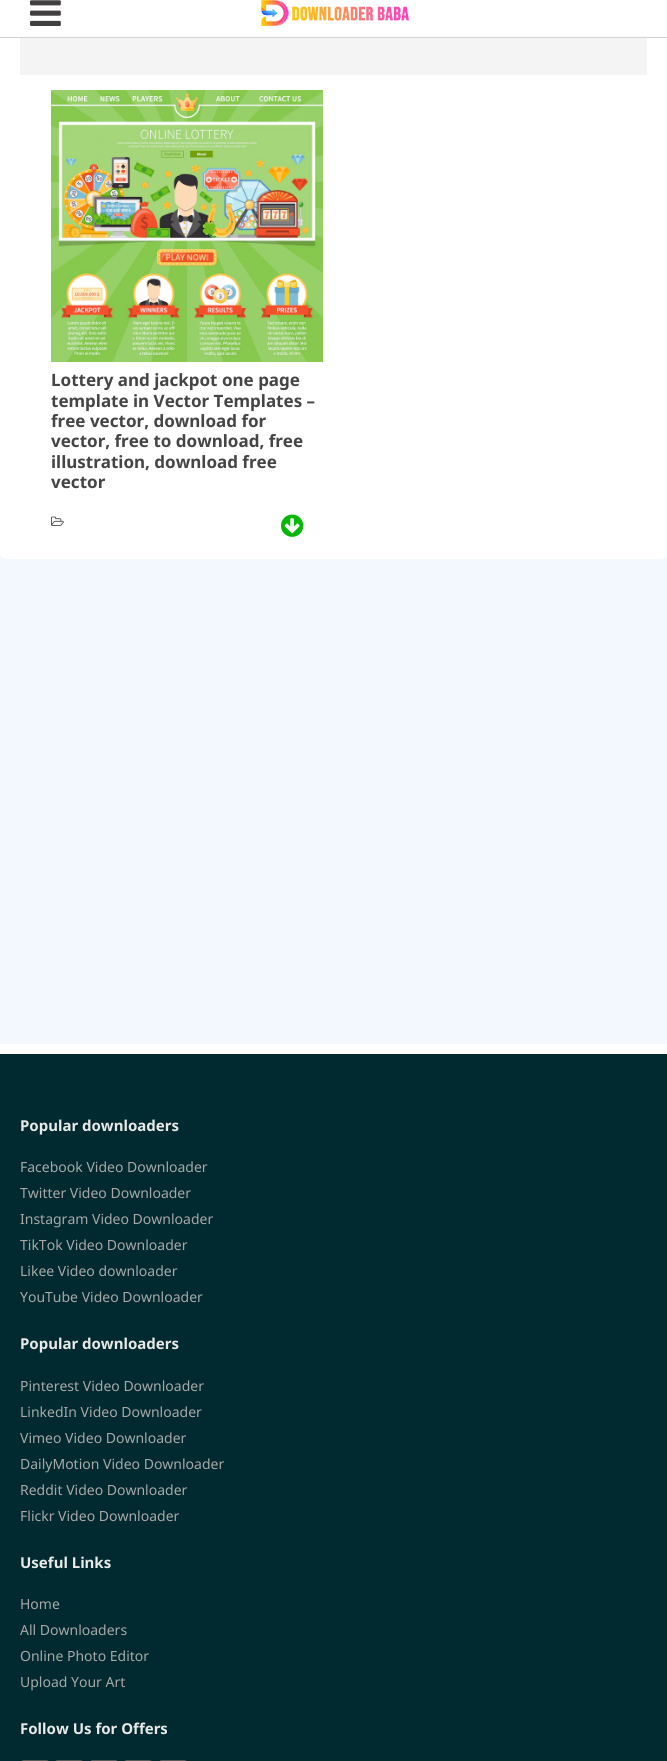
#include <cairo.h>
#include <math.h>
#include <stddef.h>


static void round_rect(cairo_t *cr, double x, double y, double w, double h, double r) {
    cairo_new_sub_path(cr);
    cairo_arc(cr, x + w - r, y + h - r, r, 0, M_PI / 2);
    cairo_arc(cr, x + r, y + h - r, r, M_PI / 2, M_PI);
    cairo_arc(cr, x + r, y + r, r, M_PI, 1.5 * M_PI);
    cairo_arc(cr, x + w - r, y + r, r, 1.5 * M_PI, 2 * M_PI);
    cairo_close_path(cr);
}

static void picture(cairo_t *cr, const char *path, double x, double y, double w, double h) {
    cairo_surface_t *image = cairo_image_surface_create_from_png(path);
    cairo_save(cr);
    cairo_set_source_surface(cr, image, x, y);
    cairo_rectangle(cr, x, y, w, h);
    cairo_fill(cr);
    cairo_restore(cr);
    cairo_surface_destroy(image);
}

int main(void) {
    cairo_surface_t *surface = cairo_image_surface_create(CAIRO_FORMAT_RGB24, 667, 1761);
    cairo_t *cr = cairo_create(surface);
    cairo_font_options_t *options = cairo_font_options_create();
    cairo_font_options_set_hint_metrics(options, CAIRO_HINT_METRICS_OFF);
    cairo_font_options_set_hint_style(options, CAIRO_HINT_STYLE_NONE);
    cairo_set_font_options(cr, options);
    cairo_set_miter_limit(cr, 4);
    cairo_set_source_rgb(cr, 1, 1, 1);
    cairo_paint(cr);
    cairo_set_source_rgb(cr, 0.953, 0.969, 0.996);
    cairo_rectangle(cr, 0, 553, 667, 491);
    cairo_fill(cr);
    cairo_set_source_rgb(cr, 1, 1, 1);
    round_rect(cr, 0, 13, 667, 546, 6);
    cairo_fill(cr);
    cairo_set_source_rgb(cr, 0.827, 0.827, 0.827);
    cairo_rectangle(cr, 0, 37, 667, 1);
    cairo_fill(cr);
    picture(cr, "img1.png", 30, 0, 31, 26);
    picture(cr, "img2.png", 261, 0, 148, 26);
    cairo_set_source_rgb(cr, 0.957, 0.957, 0.957);
    cairo_rectangle(cr, 20, 38, 627, 37);
    cairo_fill(cr);
    picture(cr, "img3.png", 51, 90, 272, 272);
    cairo_select_font_face(cr, "Noto Sans", CAIRO_FONT_SLANT_NORMAL, CAIRO_FONT_WEIGHT_BOLD);
    cairo_set_font_size(cr, 17);
    cairo_set_source_rgb(cr, 0.271, 0.271, 0.271);
    cairo_move_to(cr, 51, 386);
    cairo_show_text(cr, "Lottery and jackpot one page");
    cairo_move_to(cr, 51, 407);
    cairo_show_text(cr, "template in Vector Templates –");
    cairo_move_to(cr, 51, 427);
    cairo_show_text(cr, "free vector, download for");
    cairo_move_to(cr, 51, 447);
    cairo_show_text(cr, "vector, free to download, free");
    cairo_move_to(cr, 51, 468);
    cairo_show_text(cr, "illustration, download free");
    cairo_move_to(cr, 51, 488);
    cairo_show_text(cr, "vector");
    picture(cr, "img4.png", 51, 516, 13, 10);
    picture(cr, "img5.png", 281, 514, 23, 23);
    cairo_set_source_rgb(cr, 0, 0.165, 0.188);
    cairo_rectangle(cr, 0, 1054, 667, 707);
    cairo_fill(cr);
    cairo_set_font_size(cr, 15);
    cairo_set_source_rgb(cr, 0.91, 0.914, 0.91);
    cairo_move_to(cr, 20, 1131);
    cairo_show_text(cr, "Popular downloaders");
    cairo_select_font_face(cr, "Noto Sans", CAIRO_FONT_SLANT_NORMAL, CAIRO_FONT_WEIGHT_NORMAL);
    cairo_set_font_size(cr, 14);
    cairo_set_source_rgb(cr, 0.659, 0.659, 0.659);
    cairo_move_to(cr, 20, 1172);
    cairo_show_text(cr, "Facebook Video Downloader");
    cairo_move_to(cr, 20, 1198);
    cairo_show_text(cr, "Twitter Video Downloader");
    cairo_move_to(cr, 20, 1224);
    cairo_show_text(cr, "Instagram Video Downloader");
    cairo_move_to(cr, 20, 1250);
    cairo_show_text(cr, "TikTok Video Downloader");
    cairo_move_to(cr, 20, 1276);
    cairo_show_text(cr, "Likee Video downloader");
    cairo_move_to(cr, 20, 1302);
    cairo_show_text(cr, "YouTube Video Downloader");
    cairo_select_font_face(cr, "Noto Sans", CAIRO_FONT_SLANT_NORMAL, CAIRO_FONT_WEIGHT_BOLD);
    cairo_set_font_size(cr, 15);
    cairo_set_source_rgb(cr, 0.91, 0.914, 0.91);
    cairo_move_to(cr, 20, 1349);
    cairo_show_text(cr, "Popular downloaders");
    cairo_select_font_face(cr, "Noto Sans", CAIRO_FONT_SLANT_NORMAL, CAIRO_FONT_WEIGHT_NORMAL);
    cairo_set_font_size(cr, 14);
    cairo_set_source_rgb(cr, 0.659, 0.659, 0.659);
    cairo_move_to(cr, 20, 1391);
    cairo_show_text(cr, "Pinterest Video Downloader");
    cairo_move_to(cr, 20, 1417);
    cairo_show_text(cr, "LinkedIn Video Downloader");
    cairo_move_to(cr, 20, 1443);
    cairo_show_text(cr, "Vimeo Video Downloader");
    cairo_move_to(cr, 20, 1469);
    cairo_show_text(cr, "DailyMotion Video Downloader");
    cairo_move_to(cr, 20, 1495);
    cairo_show_text(cr, "Reddit Video Downloader");
    cairo_move_to(cr, 20, 1521);
    cairo_show_text(cr, "Flickr Video Downloader");
    cairo_select_font_face(cr, "Noto Sans", CAIRO_FONT_SLANT_NORMAL, CAIRO_FONT_WEIGHT_BOLD);
    cairo_set_font_size(cr, 15);
    cairo_set_source_rgb(cr, 0.91, 0.914, 0.91);
    cairo_move_to(cr, 20, 1568);
    cairo_show_text(cr, "Useful Links");
    cairo_select_font_face(cr, "Noto Sans", CAIRO_FONT_SLANT_NORMAL, CAIRO_FONT_WEIGHT_NORMAL);
    cairo_set_font_size(cr, 14);
    cairo_set_source_rgb(cr, 0.659, 0.659, 0.659);
    cairo_move_to(cr, 20, 1609);
    cairo_show_text(cr, "Home");
    cairo_move_to(cr, 20, 1635);
    cairo_show_text(cr, "All Downloaders");
    cairo_move_to(cr, 20, 1661);
    cairo_show_text(cr, "Online Photo Editor");
    cairo_move_to(cr, 20, 1687);
    cairo_show_text(cr, "Upload Your Art");
    cairo_select_font_face(cr, "Noto Sans", CAIRO_FONT_SLANT_NORMAL, CAIRO_FONT_WEIGHT_BOLD);
    cairo_set_font_size(cr, 15);
    cairo_set_source_rgb(cr, 0.91, 0.914, 0.91);
    cairo_move_to(cr, 20, 1734);
    cairo_show_text(cr, "Follow Us for Offers");
    cairo_set_source_rgb(cr, 0.349, 0.357, 0.357);
    round_rect(cr, 20, 1760, 30, 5, 4);
    cairo_fill(cr);
    round_rect(cr, 54, 1760, 30, 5, 4);
    cairo_fill(cr);
    round_rect(cr, 89, 1760, 30, 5, 4);
    cairo_fill(cr);
    round_rect(cr, 123, 1760, 30, 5, 4);
    cairo_fill(cr);
    round_rect(cr, 158, 1760, 30, 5, 4);
    cairo_fill(cr);
    cairo_surface_write_to_png(surface, "page.png");
    cairo_font_options_destroy(options);
    cairo_destroy(cr);
    cairo_surface_destroy(surface);
    return 0;
}
